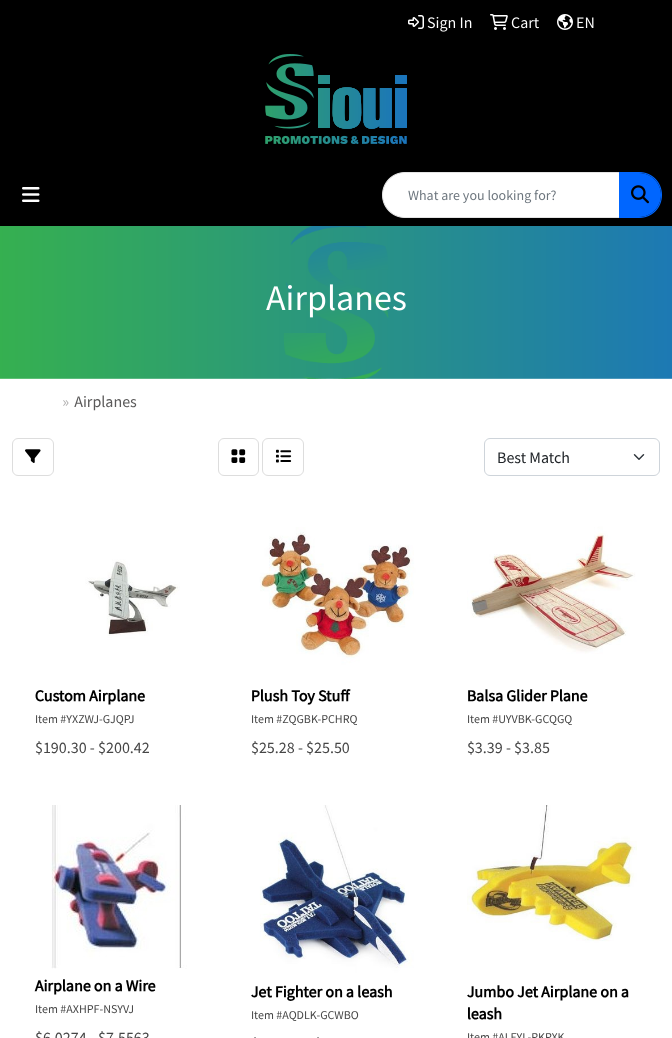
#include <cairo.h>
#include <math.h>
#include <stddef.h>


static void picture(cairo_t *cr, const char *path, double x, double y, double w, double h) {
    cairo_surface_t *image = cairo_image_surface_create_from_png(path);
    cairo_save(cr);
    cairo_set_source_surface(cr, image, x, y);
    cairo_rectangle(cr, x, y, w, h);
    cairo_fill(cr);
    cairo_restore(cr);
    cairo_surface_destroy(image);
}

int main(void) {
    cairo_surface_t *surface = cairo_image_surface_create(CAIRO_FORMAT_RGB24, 672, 1038);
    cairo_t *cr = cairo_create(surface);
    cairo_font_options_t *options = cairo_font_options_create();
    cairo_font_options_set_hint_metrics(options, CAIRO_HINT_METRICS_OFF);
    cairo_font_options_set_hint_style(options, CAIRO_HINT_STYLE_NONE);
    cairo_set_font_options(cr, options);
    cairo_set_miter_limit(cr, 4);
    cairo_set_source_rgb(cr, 1, 1, 1);
    cairo_paint(cr);
    cairo_set_source_rgb(cr, 0, 0, 0);
    cairo_rectangle(cr, 0, 0, 672, 226);
    cairo_fill(cr);
    picture(cr, "img1.png", 408, 15, 16, 14);
    cairo_select_font_face(cr, "Source Sans Pro", CAIRO_FONT_SLANT_NORMAL, CAIRO_FONT_WEIGHT_NORMAL);
    cairo_set_font_size(cr, 16);
    cairo_set_source_rgb(cr, 1, 1, 1);
    cairo_move_to(cr, 427, 28);
    cairo_show_text(cr, "Sign In");
    picture(cr, "img2.png", 490, 14, 18, 16);
    cairo_move_to(cr, 511, 28);
    cairo_show_text(cr, "Cart");
    picture(cr, "img3.png", 557, 14, 16, 16);
    cairo_move_to(cr, 576, 28);
    cairo_show_text(cr, "EN");
    picture(cr, "img4.png", 265, 54, 142, 90);
    picture(cr, "img5.png", 22, 187, 18, 15);
    cairo_new_path(cr);
    cairo_move_to(cr, 405, 172.5);
    cairo_line_to(cr, 619.5, 172.5);
    cairo_line_to(cr, 619.5, 217.5);
    cairo_line_to(cr, 405, 217.5);
    cairo_curve_to(cr, 392.5, 217.5, 382.5, 207.5, 382.5, 195);
    cairo_curve_to(cr, 382.5, 182.5, 392.5, 172.5, 405, 172.5);
    cairo_close_path(cr);
    cairo_fill_preserve(cr);
    cairo_set_source_rgb(cr, 0.894, 0.894, 0.894);
    cairo_set_line_width(cr, 1);
    cairo_stroke(cr);
    cairo_set_font_size(cr, 14);
    cairo_set_source_rgb(cr, 0.424, 0.459, 0.49);
    cairo_move_to(cr, 408, 200);
    cairo_show_text(cr, "What are you looking for?");
    cairo_set_source_rgb(cr, 0, 0.4, 1);
    cairo_new_path(cr);
    cairo_move_to(cr, 619, 173);
    cairo_line_to(cr, 639, 173);
    cairo_curve_to(cr, 651, 173, 661, 183, 661, 195);
    cairo_curve_to(cr, 661, 207, 651, 217, 639, 217);
    cairo_line_to(cr, 619, 217);
    cairo_close_path(cr);
    cairo_fill(cr);
    cairo_set_fill_rule(cr, CAIRO_FILL_RULE_EVEN_ODD);
    cairo_new_path(cr);
    cairo_move_to(cr, 619, 172);
    cairo_line_to(cr, 639, 172);
    cairo_curve_to(cr, 652, 172, 662, 182, 662, 195);
    cairo_curve_to(cr, 662, 208, 652, 218, 639, 218);
    cairo_line_to(cr, 619, 218);
    cairo_close_path(cr);
    cairo_move_to(cr, 619, 173);
    cairo_line_to(cr, 639, 173);
    cairo_curve_to(cr, 651, 173, 661, 183, 661, 195);
    cairo_curve_to(cr, 661, 207, 651, 217, 639, 217);
    cairo_line_to(cr, 619, 217);
    cairo_close_path(cr);
    cairo_fill(cr);
    picture(cr, "img6.png", 631, 185, 18, 19);
    picture(cr, "img7.png", 0, 226, 672, 153);
    cairo_set_font_size(cr, 36);
    cairo_set_source_rgb(cr, 1, 1, 1);
    cairo_move_to(cr, 266, 310);
    cairo_show_text(cr, "Airplanes");
    picture(cr, "img8.png", 12, 395, 648, 643);
    cairo_surface_write_to_png(surface, "page.png");
    cairo_font_options_destroy(options);
    cairo_destroy(cr);
    cairo_surface_destroy(surface);
    return 0;
}
